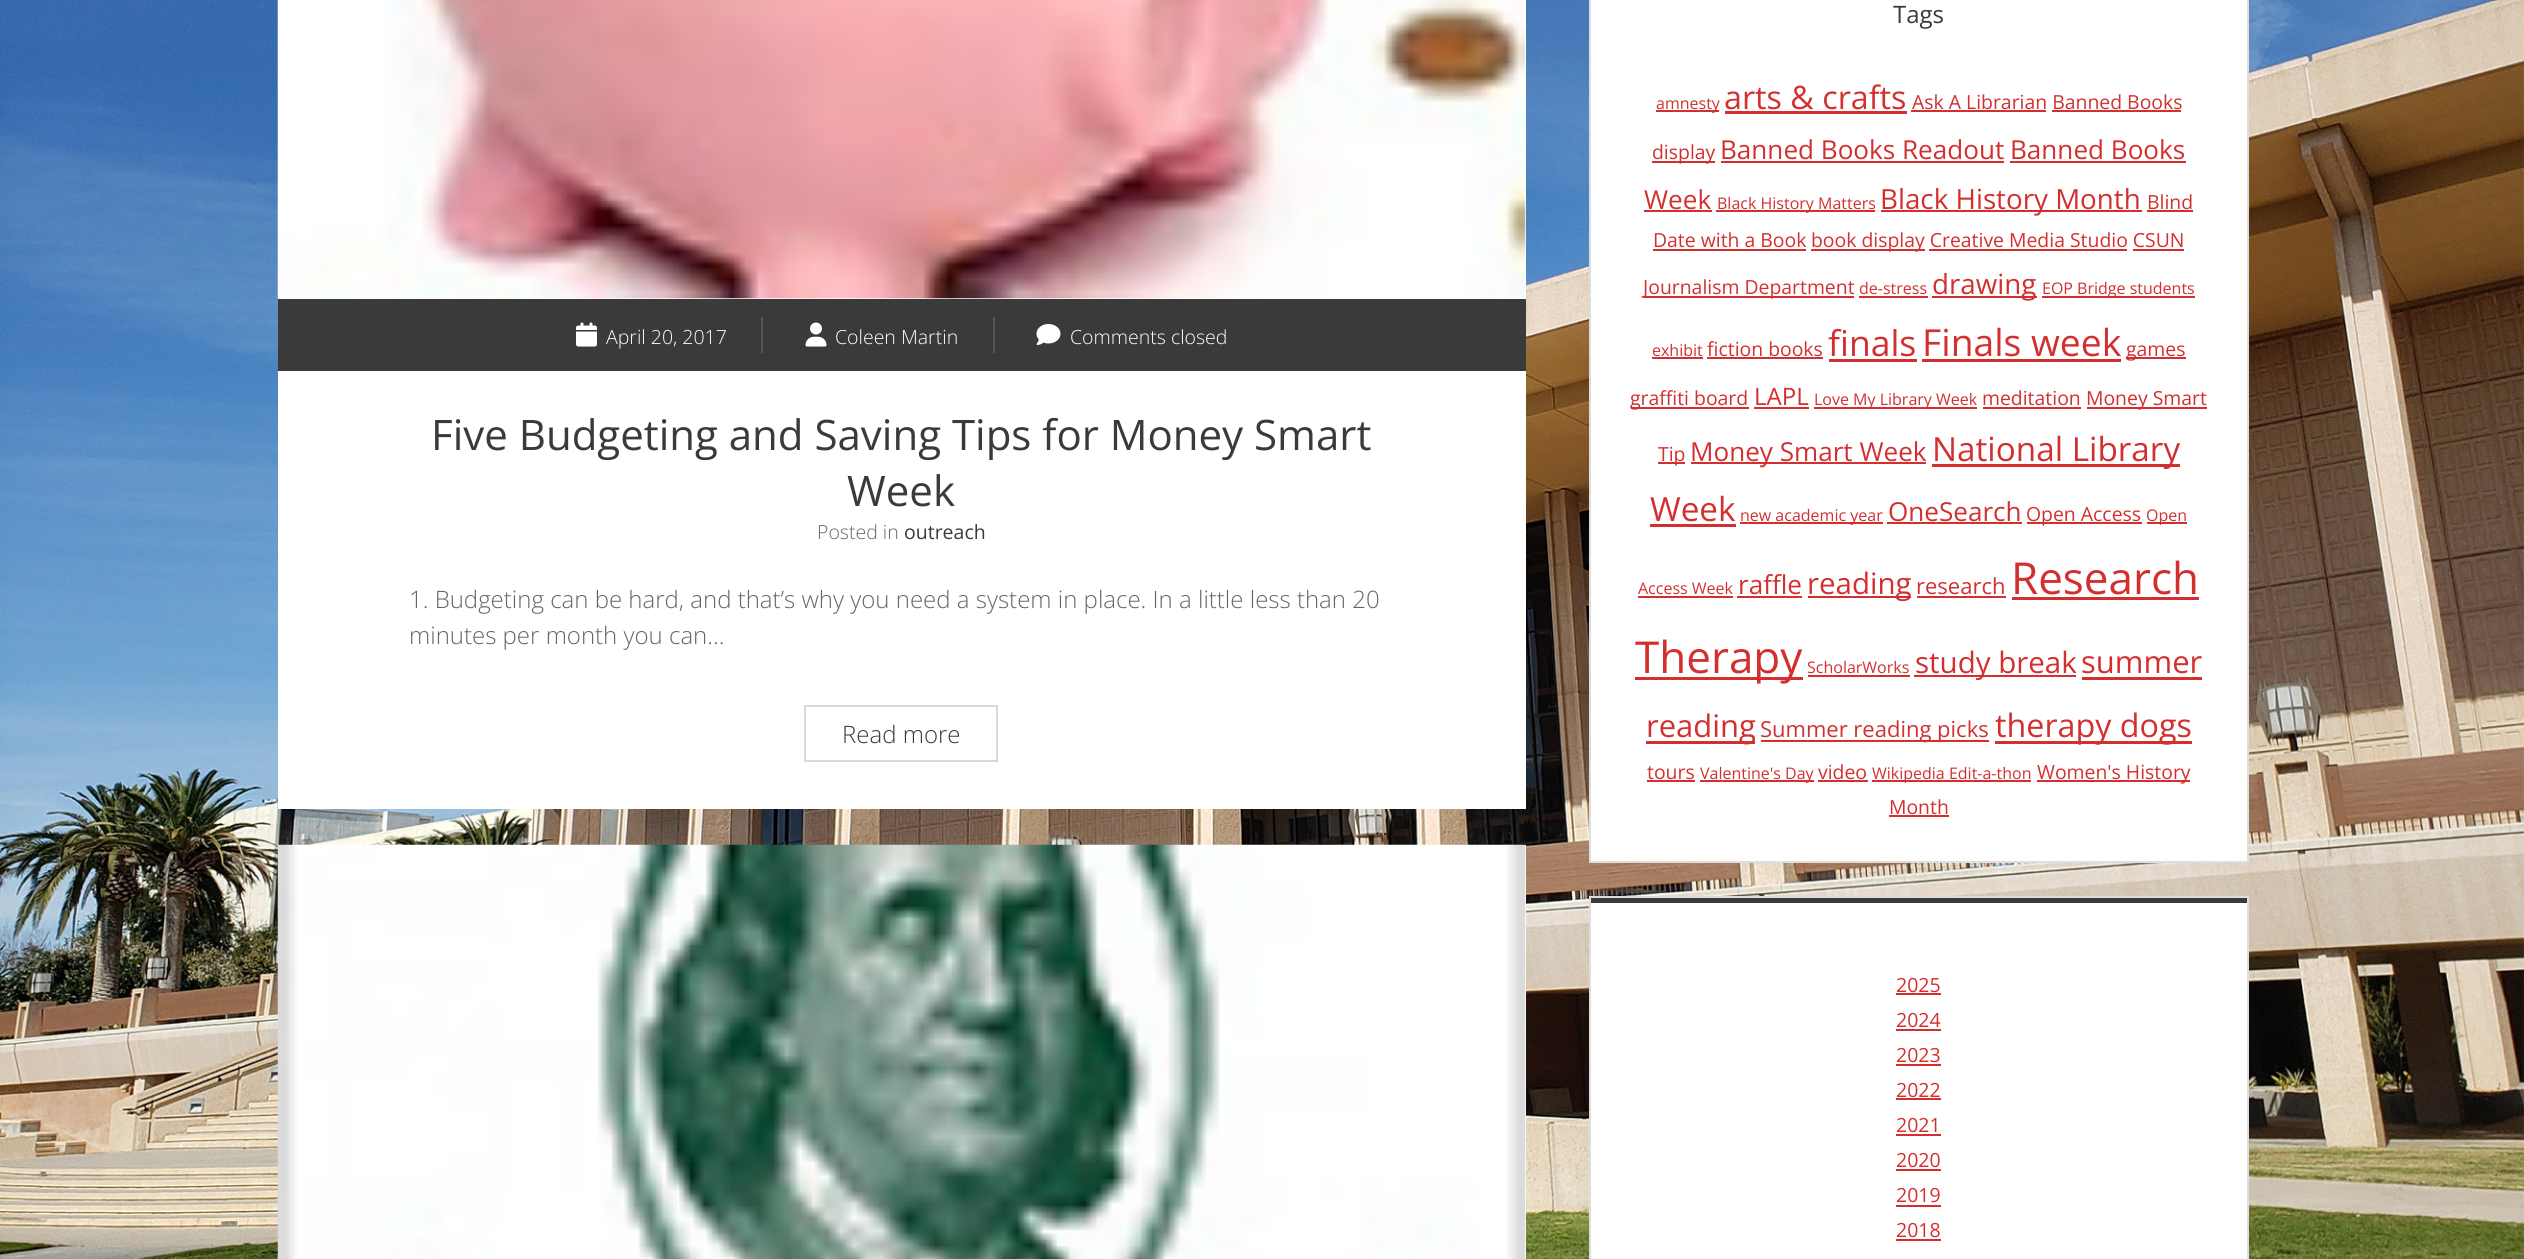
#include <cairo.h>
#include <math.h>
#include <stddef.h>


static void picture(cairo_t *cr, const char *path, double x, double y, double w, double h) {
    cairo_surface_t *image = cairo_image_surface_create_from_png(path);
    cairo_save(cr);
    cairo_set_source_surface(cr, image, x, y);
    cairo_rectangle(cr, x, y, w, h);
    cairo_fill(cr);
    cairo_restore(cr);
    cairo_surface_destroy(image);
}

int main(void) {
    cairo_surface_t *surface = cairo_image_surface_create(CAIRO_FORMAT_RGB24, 2524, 1259);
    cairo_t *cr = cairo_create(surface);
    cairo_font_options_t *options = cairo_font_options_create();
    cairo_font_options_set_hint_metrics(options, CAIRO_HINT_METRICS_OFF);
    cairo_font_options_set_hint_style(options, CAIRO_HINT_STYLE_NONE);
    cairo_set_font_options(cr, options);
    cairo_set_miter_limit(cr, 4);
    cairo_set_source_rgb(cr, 1, 1, 1);
    cairo_paint(cr);
    picture(cr, "img1.png", 0, 0, 2524, 1259);
    cairo_set_source_rgb(cr, 1, 1, 1);
    cairo_rectangle(cr, 278, 0, 1248, 809);
    cairo_fill(cr);
    picture(cr, "img2.png", 277, 0, 1249, 299);
    cairo_set_source_rgb(cr, 0.227, 0.227, 0.227);
    cairo_rectangle(cr, 278, 299, 1248, 72);
    cairo_fill(cr);
    picture(cr, "img3.png", 576, 322, 21, 25);
    cairo_select_font_face(cr, "Open Sans Light", CAIRO_FONT_SLANT_NORMAL, CAIRO_FONT_WEIGHT_NORMAL);
    cairo_set_font_size(cr, 19.5);
    cairo_set_source_rgb(cr, 1, 1, 1);
    cairo_move_to(cr, 606, 344);
    cairo_show_text(cr, "April 20, 2017");
    cairo_set_source_rgb(cr, 0.329, 0.329, 0.329);
    cairo_rectangle(cr, 761, 317, 2, 36);
    cairo_fill(cr);
    picture(cr, "img4.png", 805, 322, 22, 25);
    cairo_set_source_rgb(cr, 1, 1, 1);
    cairo_move_to(cr, 835, 344);
    cairo_show_text(cr, "Coleen Martin");
    cairo_set_source_rgb(cr, 0.329, 0.329, 0.329);
    cairo_rectangle(cr, 993, 317, 2, 36);
    cairo_fill(cr);
    picture(cr, "img5.png", 1036, 324, 25, 21);
    cairo_set_source_rgb(cr, 1, 1, 1);
    cairo_move_to(cr, 1070, 344);
    cairo_show_text(cr, "Comments closed");
    cairo_select_font_face(cr, "Open Sans", CAIRO_FONT_SLANT_NORMAL, CAIRO_FONT_WEIGHT_NORMAL);
    cairo_set_font_size(cr, 42);
    cairo_set_source_rgb(cr, 0.227, 0.227, 0.227);
    cairo_move_to(cr, 431, 450);
    cairo_show_text(cr, "Five Budgeting and Saving Tips for Money Smart");
    cairo_move_to(cr, 847, 506);
    cairo_show_text(cr, "Week");
    cairo_select_font_face(cr, "Open Sans Light", CAIRO_FONT_SLANT_NORMAL, CAIRO_FONT_WEIGHT_NORMAL);
    cairo_set_font_size(cr, 19.5);
    cairo_set_source_rgb(cr, 0.4, 0.4, 0.4);
    cairo_move_to(cr, 817, 539);
    cairo_show_text(cr, "Posted in");
    cairo_select_font_face(cr, "Open Sans", CAIRO_FONT_SLANT_NORMAL, CAIRO_FONT_WEIGHT_NORMAL);
    cairo_set_source_rgb(cr, 0.227, 0.227, 0.227);
    cairo_move_to(cr, 904, 539);
    cairo_show_text(cr, "outreach");
    cairo_select_font_face(cr, "Open Sans Light", CAIRO_FONT_SLANT_NORMAL, CAIRO_FONT_WEIGHT_NORMAL);
    cairo_set_font_size(cr, 24);
    cairo_set_source_rgb(cr, 0.4, 0.4, 0.4);
    cairo_move_to(cr, 409, 608);
    cairo_show_text(cr, "1. Budgeting can be hard, and that’s why you need a system in place. In a little less than 20");
    cairo_move_to(cr, 409, 644);
    cairo_show_text(cr, "minutes per month you can…");
    cairo_rectangle(cr, 805, 706, 192, 55);
    cairo_set_source_rgb(cr, 0.851, 0.851, 0.851);
    cairo_stroke(cr);
    cairo_set_source_rgb(cr, 0.227, 0.227, 0.227);
    cairo_move_to(cr, 842, 743);
    cairo_show_text(cr, "Read more");
    cairo_set_source_rgb(cr, 1, 1, 1);
    cairo_rectangle(cr, 1525, 845, 1, 414);
    cairo_fill(cr);
    picture(cr, "img6.png", 277, 844, 1249, 415);
    cairo_rectangle(cr, 1591, 0, 656, 861);
    cairo_fill(cr);
    cairo_set_source_rgb(cr, 0.827, 0.184, 0.184);
    cairo_rectangle(cr, 1656, 110, 63, 2);
    cairo_fill(cr);
    cairo_rectangle(cr, 1725, 111, 182, 3);
    cairo_fill(cr);
    cairo_rectangle(cr, 1911, 110, 135, 2);
    cairo_fill(cr);
    cairo_rectangle(cr, 2052, 110, 129, 2);
    cairo_fill(cr);
    cairo_rectangle(cr, 1652, 161, 63, 2);
    cairo_fill(cr);
    cairo_rectangle(cr, 1721, 161, 283, 2);
    cairo_fill(cr);
    cairo_rectangle(cr, 2010, 161, 176, 2);
    cairo_fill(cr);
    cairo_rectangle(cr, 1644, 210, 68, 2);
    cairo_fill(cr);
    cairo_rectangle(cr, 1716, 210, 159, 2);
    cairo_fill(cr);
    cairo_rectangle(cr, 1881, 210, 261, 2);
    cairo_fill(cr);
    cairo_rectangle(cr, 2147, 210, 46, 2);
    cairo_fill(cr);
    cairo_rectangle(cr, 1653, 249, 153, 2);
    cairo_fill(cr);
    cairo_rectangle(cr, 1811, 249, 114, 2);
    cairo_fill(cr);
    cairo_rectangle(cr, 1929, 249, 198, 2);
    cairo_fill(cr);
    cairo_rectangle(cr, 2133, 249, 51, 2);
    cairo_fill(cr);
    cairo_rectangle(cr, 1643, 296, 211, 2);
    cairo_fill(cr);
    cairo_rectangle(cr, 1859, 296, 69, 2);
    cairo_fill(cr);
    cairo_rectangle(cr, 1932, 296, 105, 2);
    cairo_fill(cr);
    cairo_rectangle(cr, 2042, 296, 153, 2);
    cairo_fill(cr);
    cairo_rectangle(cr, 1652, 357, 51, 2);
    cairo_fill(cr);
    cairo_rectangle(cr, 1707, 357, 116, 2);
    cairo_fill(cr);
    cairo_rectangle(cr, 1829, 359, 88, 3);
    cairo_fill(cr);
    cairo_rectangle(cr, 1922, 359, 199, 3);
    cairo_fill(cr);
    cairo_rectangle(cr, 2126, 357, 60, 2);
    cairo_fill(cr);
    cairo_rectangle(cr, 1631, 407, 118, 2);
    cairo_fill(cr);
    cairo_rectangle(cr, 1754, 407, 55, 2);
    cairo_fill(cr);
    cairo_rectangle(cr, 1814, 407, 163, 2);
    cairo_fill(cr);
    cairo_rectangle(cr, 1983, 407, 98, 2);
    cairo_fill(cr);
    cairo_rectangle(cr, 2087, 407, 120, 2);
    cairo_fill(cr);
    cairo_rectangle(cr, 1658, 462, 27, 2);
    cairo_fill(cr);
    cairo_rectangle(cr, 1691, 462, 235, 2);
    cairo_fill(cr);
    cairo_rectangle(cr, 1932, 464, 248, 3);
    cairo_fill(cr);
    cairo_rectangle(cr, 1650, 524, 86, 3);
    cairo_fill(cr);
    cairo_rectangle(cr, 1740, 522, 143, 2);
    cairo_fill(cr);
    cairo_rectangle(cr, 1887, 522, 135, 2);
    cairo_fill(cr);
    cairo_rectangle(cr, 2027, 522, 115, 2);
    cairo_fill(cr);
    cairo_rectangle(cr, 2147, 522, 40, 2);
    cairo_fill(cr);
    cairo_rectangle(cr, 1638, 596, 95, 2);
    cairo_fill(cr);
    cairo_rectangle(cr, 1737, 596, 65, 2);
    cairo_fill(cr);
    cairo_rectangle(cr, 1808, 596, 103, 2);
    cairo_fill(cr);
    cairo_rectangle(cr, 1917, 596, 89, 2);
    cairo_fill(cr);
    cairo_rectangle(cr, 2012, 597, 187, 3);
    cairo_fill(cr);
    cairo_rectangle(cr, 1635, 677, 168, 3);
    cairo_fill(cr);
    cairo_rectangle(cr, 1808, 675, 102, 2);
    cairo_fill(cr);
    cairo_rectangle(cr, 1914, 675, 162, 2);
    cairo_fill(cr);
    cairo_rectangle(cr, 2082, 677, 120, 3);
    cairo_fill(cr);
    cairo_rectangle(cr, 1646, 741, 109, 3);
    cairo_fill(cr);
    cairo_rectangle(cr, 1761, 740, 228, 2);
    cairo_fill(cr);
    cairo_rectangle(cr, 1995, 741, 197, 3);
    cairo_fill(cr);
    cairo_rectangle(cr, 1647, 780, 48, 2);
    cairo_fill(cr);
    cairo_rectangle(cr, 1700, 780, 114, 2);
    cairo_fill(cr);
    cairo_rectangle(cr, 1818, 780, 50, 2);
    cairo_fill(cr);
    cairo_rectangle(cr, 1872, 780, 159, 2);
    cairo_fill(cr);
    cairo_rectangle(cr, 2037, 780, 153, 2);
    cairo_fill(cr);
    cairo_rectangle(cr, 1889, 815, 60, 2);
    cairo_fill(cr);
    cairo_rectangle(cr, 1590, -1, 658, 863);
    cairo_set_source_rgb(cr, 0.871, 0.871, 0.871);
    cairo_stroke(cr);
    cairo_select_font_face(cr, "Open Sans", CAIRO_FONT_SLANT_NORMAL, CAIRO_FONT_WEIGHT_NORMAL);
    cairo_set_source_rgb(cr, 0.227, 0.227, 0.227);
    cairo_move_to(cr, 1893, 23);
    cairo_show_text(cr, "Tags");
    cairo_set_font_size(cr, 16);
    cairo_set_source_rgb(cr, 0.827, 0.184, 0.184);
    cairo_move_to(cr, 1656, 109);
    cairo_show_text(cr, "amnesty");
    cairo_set_font_size(cr, 32.25);
    cairo_move_to(cr, 1724, 109);
    cairo_show_text(cr, "arts & crafts");
    cairo_set_font_size(cr, 19.4);
    cairo_move_to(cr, 1912, 109);
    cairo_show_text(cr, "Ask A Librarian Banned Books");
    cairo_move_to(cr, 1652, 159);
    cairo_show_text(cr, "display");
    cairo_set_font_size(cr, 26.1);
    cairo_move_to(cr, 1720, 159);
    cairo_show_text(cr, "Banned Books Readout");
    cairo_move_to(cr, 2010, 159);
    cairo_show_text(cr, "Banned Books");
    cairo_move_to(cr, 1644, 209);
    cairo_show_text(cr, "Week");
    cairo_set_font_size(cr, 16);
    cairo_move_to(cr, 1717, 209);
    cairo_show_text(cr, "Black History Matters");
    cairo_set_font_size(cr, 27.75);
    cairo_move_to(cr, 1880, 209);
    cairo_show_text(cr, "Black History Month");
    cairo_set_font_size(cr, 19.4);
    cairo_move_to(cr, 2147, 209);
    cairo_show_text(cr, "Blind");
    cairo_move_to(cr, 1653, 247);
    cairo_show_text(cr, "Date with a Book");
    cairo_move_to(cr, 1811, 247);
    cairo_show_text(cr, "book display Creative Media Studio CSUN");
    cairo_move_to(cr, 1643, 294);
    cairo_show_text(cr, "Journalism Department");
    cairo_set_font_size(cr, 16);
    cairo_move_to(cr, 1859, 294);
    cairo_show_text(cr, "de-stress");
    cairo_set_font_size(cr, 27.75);
    cairo_move_to(cr, 1932, 294);
    cairo_show_text(cr, "drawing");
    cairo_set_font_size(cr, 16);
    cairo_move_to(cr, 2042, 294);
    cairo_show_text(cr, "EOP Bridge students");
    cairo_move_to(cr, 1652, 356);
    cairo_show_text(cr, "exhibit");
    cairo_set_font_size(cr, 19.4);
    cairo_move_to(cr, 1707, 356);
    cairo_show_text(cr, "fiction books");
    cairo_set_font_size(cr, 35.5);
    cairo_move_to(cr, 1828, 356);
    cairo_show_text(cr, "finals");
    cairo_set_font_size(cr, 37.25);
    cairo_move_to(cr, 1922, 356);
    cairo_show_text(cr, "Finals week");
    cairo_set_font_size(cr, 19.4);
    cairo_move_to(cr, 2126, 356);
    cairo_show_text(cr, "games");
    cairo_move_to(cr, 1630, 405);
    cairo_show_text(cr, "graffiti board");
    cairo_set_font_size(cr, 24);
    cairo_move_to(cr, 1754, 405);
    cairo_show_text(cr, "LAPL");
    cairo_set_font_size(cr, 16);
    cairo_move_to(cr, 1814, 405);
    cairo_show_text(cr, "Love My Library Week");
    cairo_set_font_size(cr, 19.4);
    cairo_move_to(cr, 1982, 405);
    cairo_show_text(cr, "meditation");
    cairo_move_to(cr, 2086, 405);
    cairo_show_text(cr, "Money Smart");
    cairo_move_to(cr, 1658, 461);
    cairo_show_text(cr, "Tip");
    cairo_set_font_size(cr, 26.1);
    cairo_move_to(cr, 1690, 461);
    cairo_show_text(cr, "Money Smart Week");
    cairo_set_font_size(cr, 33.25);
    cairo_move_to(cr, 1932, 461);
    cairo_show_text(cr, "National Library");
    cairo_move_to(cr, 1650, 521);
    cairo_show_text(cr, "Week");
    cairo_set_font_size(cr, 16);
    cairo_move_to(cr, 1740, 521);
    cairo_show_text(cr, "new academic year");
    cairo_set_font_size(cr, 26.1);
    cairo_move_to(cr, 1888, 521);
    cairo_show_text(cr, "OneSearch");
    cairo_set_font_size(cr, 19.4);
    cairo_move_to(cr, 2026, 521);
    cairo_show_text(cr, "Open Access");
    cairo_set_font_size(cr, 16);
    cairo_move_to(cr, 2146, 521);
    cairo_show_text(cr, "Open");
    cairo_move_to(cr, 1638, 594);
    cairo_show_text(cr, "Access Week");
    cairo_set_font_size(cr, 26.1);
    cairo_move_to(cr, 1738, 594);
    cairo_show_text(cr, "raffle");
    cairo_set_font_size(cr, 29.5);
    cairo_move_to(cr, 1807, 594);
    cairo_show_text(cr, "reading");
    cairo_set_font_size(cr, 22);
    cairo_move_to(cr, 1916, 594);
    cairo_show_text(cr, "research");
    cairo_set_font_size(cr, 44);
    cairo_move_to(cr, 2011, 594);
    cairo_show_text(cr, "Research");
    cairo_move_to(cr, 1635, 673);
    cairo_show_text(cr, "Therapy");
    cairo_set_font_size(cr, 16);
    cairo_move_to(cr, 1807, 673);
    cairo_show_text(cr, "ScholarWorks");
    cairo_set_font_size(cr, 29.5);
    cairo_move_to(cr, 1915, 673);
    cairo_show_text(cr, "study break");
    cairo_set_font_size(cr, 31);
    cairo_move_to(cr, 2081, 673);
    cairo_show_text(cr, "summer");
    cairo_move_to(cr, 1646, 737);
    cairo_show_text(cr, "reading");
    cairo_set_font_size(cr, 22);
    cairo_move_to(cr, 1760, 737);
    cairo_show_text(cr, "Summer reading picks");
    cairo_set_font_size(cr, 32.25);
    cairo_move_to(cr, 1995, 737);
    cairo_show_text(cr, "therapy dogs");
    cairo_set_font_size(cr, 19.4);
    cairo_move_to(cr, 1647, 779);
    cairo_show_text(cr, "tours");
    cairo_set_font_size(cr, 16);
    cairo_move_to(cr, 1700, 779);
    cairo_show_text(cr, "Valentine's Day");
    cairo_set_font_size(cr, 19.4);
    cairo_move_to(cr, 1818, 779);
    cairo_show_text(cr, "video");
    cairo_set_font_size(cr, 16);
    cairo_move_to(cr, 1872, 779);
    cairo_show_text(cr, "Wikipedia Edit-a-thon");
    cairo_set_font_size(cr, 19.4);
    cairo_move_to(cr, 2037, 779);
    cairo_show_text(cr, "Women's History");
    cairo_move_to(cr, 1889, 814);
    cairo_show_text(cr, "Month");
    cairo_set_source_rgb(cr, 1, 1, 1);
    cairo_rectangle(cr, 1591, 903, 656, 356);
    cairo_fill(cr);
    cairo_set_source_rgb(cr, 0.227, 0.227, 0.227);
    cairo_rectangle(cr, 1590, 898, 657, 5);
    cairo_fill(cr);
    cairo_set_source_rgb(cr, 0.827, 0.184, 0.184);
    cairo_rectangle(cr, 1896, 993, 45, 2);
    cairo_fill(cr);
    cairo_rectangle(cr, 1896, 1029, 45, 2);
    cairo_fill(cr);
    cairo_rectangle(cr, 1896, 1064, 45, 2);
    cairo_fill(cr);
    cairo_rectangle(cr, 1896, 1098, 45, 2);
    cairo_fill(cr);
    cairo_rectangle(cr, 1896, 1134, 45, 2);
    cairo_fill(cr);
    cairo_rectangle(cr, 1896, 1169, 45, 2);
    cairo_fill(cr);
    cairo_rectangle(cr, 1896, 1205, 45, 2);
    cairo_fill(cr);
    cairo_rectangle(cr, 1896, 1239, 45, 2);
    cairo_fill(cr);
    cairo_rectangle(cr, 1590, 897, 658, 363);
    cairo_set_source_rgb(cr, 0.871, 0.871, 0.871);
    cairo_stroke(cr);
    cairo_set_font_size(cr, 19.5);
    cairo_set_source_rgb(cr, 0.827, 0.184, 0.184);
    cairo_move_to(cr, 1896, 992);
    cairo_show_text(cr, "2025");
    cairo_move_to(cr, 1896, 1027);
    cairo_show_text(cr, "2024");
    cairo_move_to(cr, 1896, 1062);
    cairo_show_text(cr, "2023");
    cairo_move_to(cr, 1896, 1097);
    cairo_show_text(cr, "2022");
    cairo_move_to(cr, 1896, 1132);
    cairo_show_text(cr, "2021");
    cairo_move_to(cr, 1896, 1167);
    cairo_show_text(cr, "2020");
    cairo_move_to(cr, 1896, 1202);
    cairo_show_text(cr, "2019");
    cairo_move_to(cr, 1896, 1237);
    cairo_show_text(cr, "2018");
    cairo_surface_write_to_png(surface, "page.png");
    cairo_font_options_destroy(options);
    cairo_destroy(cr);
    cairo_surface_destroy(surface);
    return 0;
}
